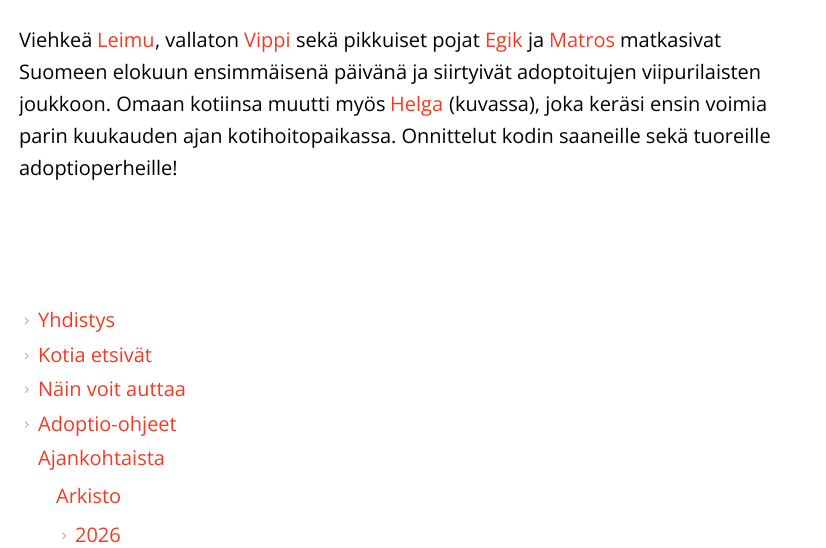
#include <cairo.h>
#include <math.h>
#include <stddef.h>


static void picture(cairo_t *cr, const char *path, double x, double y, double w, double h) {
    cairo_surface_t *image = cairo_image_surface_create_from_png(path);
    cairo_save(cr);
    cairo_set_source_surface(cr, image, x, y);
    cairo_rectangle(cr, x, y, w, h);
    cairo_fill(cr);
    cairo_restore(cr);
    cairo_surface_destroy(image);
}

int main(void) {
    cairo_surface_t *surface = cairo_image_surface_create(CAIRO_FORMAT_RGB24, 826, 548);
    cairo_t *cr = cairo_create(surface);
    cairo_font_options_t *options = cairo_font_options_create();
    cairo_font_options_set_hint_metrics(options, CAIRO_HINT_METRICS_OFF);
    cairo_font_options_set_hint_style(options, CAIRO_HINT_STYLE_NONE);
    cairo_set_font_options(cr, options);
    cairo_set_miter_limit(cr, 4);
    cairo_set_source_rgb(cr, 1, 1, 1);
    cairo_paint(cr);
    cairo_select_font_face(cr, "Open Sans", CAIRO_FONT_SLANT_NORMAL, CAIRO_FONT_WEIGHT_NORMAL);
    cairo_set_font_size(cr, 20);
    cairo_set_source_rgb(cr, 0, 0, 0);
    cairo_move_to(cr, 19, 47);
    cairo_show_text(cr, "Viehkeä");
    cairo_set_source_rgb(cr, 0.976, 0.22, 0.133);
    cairo_move_to(cr, 97, 47);
    cairo_show_text(cr, "Leimu");
    cairo_set_source_rgb(cr, 0, 0, 0);
    cairo_move_to(cr, 155, 47);
    cairo_show_text(cr, ", vallaton");
    cairo_set_source_rgb(cr, 0.976, 0.22, 0.133);
    cairo_move_to(cr, 244, 47);
    cairo_show_text(cr, "Vippi");
    cairo_set_source_rgb(cr, 0, 0, 0);
    cairo_move_to(cr, 296, 47);
    cairo_show_text(cr, "sekä pikkuiset pojat");
    cairo_set_source_rgb(cr, 0.976, 0.22, 0.133);
    cairo_move_to(cr, 485, 47);
    cairo_show_text(cr, "Egik");
    cairo_set_source_rgb(cr, 0, 0, 0);
    cairo_move_to(cr, 528, 47);
    cairo_show_text(cr, "ja");
    cairo_set_source_rgb(cr, 0.976, 0.22, 0.133);
    cairo_move_to(cr, 549, 47);
    cairo_show_text(cr, "Matros");
    cairo_set_source_rgb(cr, 0, 0, 0);
    cairo_move_to(cr, 620, 47);
    cairo_show_text(cr, "matkasivat");
    cairo_move_to(cr, 19, 79);
    cairo_show_text(cr, "Suomeen elokuun ensimmäisenä päivänä ja siirtyivät adoptoitujen viipurilaisten");
    cairo_save(cr);
    cairo_rectangle(cr, 19, 0, 789, 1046);
    cairo_clip(cr);
    cairo_move_to(cr, 19, 111);
    cairo_show_text(cr, "joukkoon. Omaan kotiinsa muutti myös");
    cairo_restore(cr);
    cairo_set_source_rgb(cr, 0.976, 0.22, 0.133);
    cairo_move_to(cr, 390, 111);
    cairo_show_text(cr, "Helga");
    cairo_set_source_rgb(cr, 0, 0, 0);
    cairo_move_to(cr, 449, 111);
    cairo_show_text(cr, "(kuvassa), joka keräsi ensin voimia");
    cairo_move_to(cr, 19, 143);
    cairo_show_text(cr, "parin kuukauden ajan kotihoitopaikassa. Onnittelut kodin saaneille sekä tuoreille");
    cairo_move_to(cr, 19, 175);
    cairo_show_text(cr, "adoptioperheille!");
    picture(cr, "img1.png", 24, 317, 5, 7);
    cairo_set_source_rgb(cr, 0.976, 0.22, 0.133);
    cairo_move_to(cr, 38, 327);
    cairo_show_text(cr, "Yhdistys");
    picture(cr, "img1.png", 24, 352, 5, 7);
    cairo_move_to(cr, 38, 362);
    cairo_show_text(cr, "Kotia etsivät");
    picture(cr, "img2.png", 24, 386, 5, 7);
    cairo_move_to(cr, 38, 396);
    cairo_show_text(cr, "Näin voit auttaa");
    picture(cr, "img2.png", 24, 421, 5, 7);
    cairo_move_to(cr, 38, 431);
    cairo_show_text(cr, "Adoptio-ohjeet");
    cairo_move_to(cr, 38, 465);
    cairo_show_text(cr, "Ajankohtaista");
    cairo_move_to(cr, 56, 503);
    cairo_show_text(cr, "Arkisto");
    picture(cr, "img3.png", 62, 532, 5, 7);
    cairo_move_to(cr, 75, 542);
    cairo_show_text(cr, "2026");
    cairo_surface_write_to_png(surface, "page.png");
    cairo_font_options_destroy(options);
    cairo_destroy(cr);
    cairo_surface_destroy(surface);
    return 0;
}
